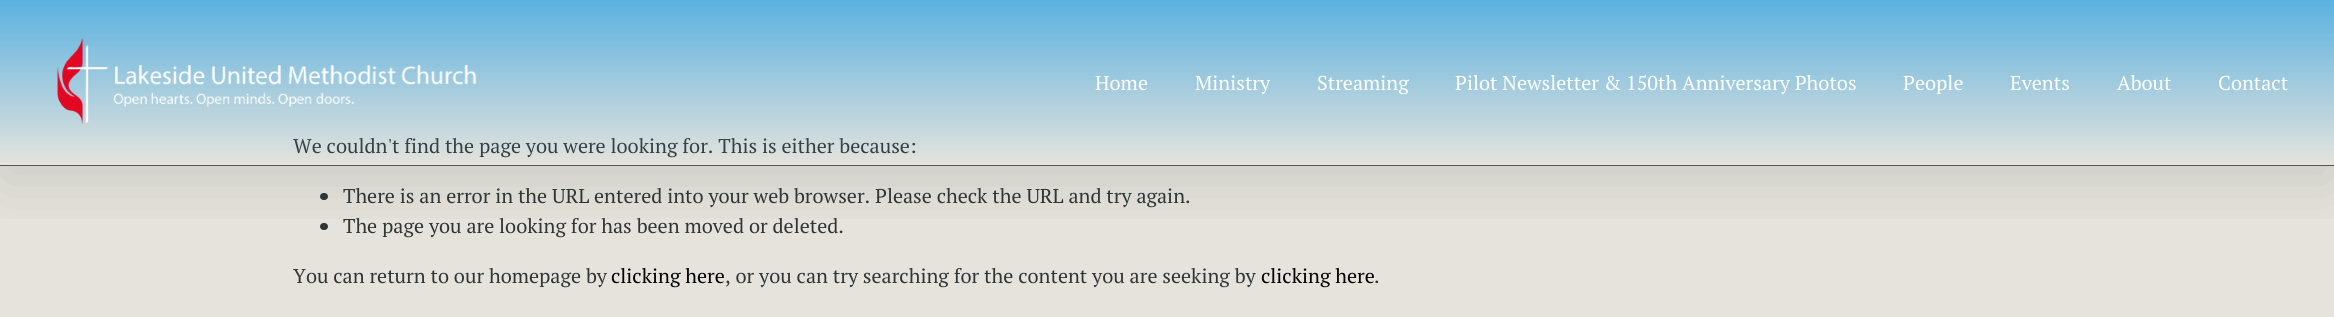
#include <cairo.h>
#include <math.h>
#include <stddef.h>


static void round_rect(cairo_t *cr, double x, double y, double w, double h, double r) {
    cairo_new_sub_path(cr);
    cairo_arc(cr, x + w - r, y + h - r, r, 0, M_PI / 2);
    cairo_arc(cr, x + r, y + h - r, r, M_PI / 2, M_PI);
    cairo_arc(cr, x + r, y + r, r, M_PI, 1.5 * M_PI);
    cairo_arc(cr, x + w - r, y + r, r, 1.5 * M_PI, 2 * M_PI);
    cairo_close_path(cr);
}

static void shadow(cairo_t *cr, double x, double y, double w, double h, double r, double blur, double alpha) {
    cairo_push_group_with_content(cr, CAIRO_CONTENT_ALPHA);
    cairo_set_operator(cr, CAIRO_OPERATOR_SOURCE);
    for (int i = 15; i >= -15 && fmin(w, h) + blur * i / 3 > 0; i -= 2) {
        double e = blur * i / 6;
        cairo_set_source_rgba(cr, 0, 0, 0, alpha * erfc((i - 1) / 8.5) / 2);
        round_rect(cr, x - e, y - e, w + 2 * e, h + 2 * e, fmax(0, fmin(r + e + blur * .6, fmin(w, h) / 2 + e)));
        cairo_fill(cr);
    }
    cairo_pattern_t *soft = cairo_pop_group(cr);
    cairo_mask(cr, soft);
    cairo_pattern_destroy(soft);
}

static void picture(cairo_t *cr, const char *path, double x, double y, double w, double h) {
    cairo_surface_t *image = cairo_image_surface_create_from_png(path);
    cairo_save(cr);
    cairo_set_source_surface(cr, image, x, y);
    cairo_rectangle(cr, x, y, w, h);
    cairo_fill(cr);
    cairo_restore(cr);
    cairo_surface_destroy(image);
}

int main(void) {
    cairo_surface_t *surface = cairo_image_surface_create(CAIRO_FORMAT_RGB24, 2334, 317);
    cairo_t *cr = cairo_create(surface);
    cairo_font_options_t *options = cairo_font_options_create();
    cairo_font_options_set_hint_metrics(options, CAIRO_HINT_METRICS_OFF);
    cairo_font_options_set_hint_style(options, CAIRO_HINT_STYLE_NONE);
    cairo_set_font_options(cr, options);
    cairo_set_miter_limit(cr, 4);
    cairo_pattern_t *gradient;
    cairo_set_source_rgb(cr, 0.898, 0.89, 0.863);
    cairo_paint(cr);
    cairo_set_source_rgb(cr, 0.188, 0.212, 0.212);
    round_rect(cr, 320, 193, 8, 7, 3.5);
    cairo_fill(cr);
    round_rect(cr, 320, 223, 8, 7, 3.5);
    cairo_fill(cr);
    cairo_save(cr);
    cairo_rectangle(cr, 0, 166, 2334, 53);
    cairo_clip(cr);
    cairo_set_source_rgb(cr, 0.188, 0.212, 0.212);
    shadow(cr, 0, 15, 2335, 166, 0, 34.5, 0.15);
    cairo_restore(cr);
    cairo_select_font_face(cr, "PT Serif", CAIRO_FONT_SLANT_NORMAL, CAIRO_FONT_WEIGHT_NORMAL);
    cairo_set_font_size(cr, 20);
    cairo_move_to(cr, 293, 153);
    cairo_show_text(cr, "We couldn't find the page you were looking for. This is either because:");
    gradient = cairo_pattern_create_linear(1168, 0, 1168, 166);
    cairo_pattern_add_color_stop_rgba(gradient, 0, 0.298, 0.675, 0.882, 0.9);
    cairo_pattern_add_color_stop_rgba(gradient, 1, 0.298, 0.675, 0.882, 0);
    cairo_set_source(cr, gradient);
    cairo_pattern_destroy(gradient);
    cairo_rectangle(cr, 0, 0, 2334, 162);
    cairo_fill(cr);
    picture(cr, "img1.png", 57, 38, 420, 86);
    cairo_set_source_rgb(cr, 1, 1, 1);
    cairo_move_to(cr, 1095, 90);
    cairo_show_text(cr, "Home");
    cairo_move_to(cr, 1195, 90);
    cairo_show_text(cr, "Ministry");
    cairo_move_to(cr, 1317, 90);
    cairo_show_text(cr, "Streaming");
    cairo_move_to(cr, 1455, 90);
    cairo_show_text(cr, "Pilot Newsletter & 150th Anniversary Photos");
    cairo_move_to(cr, 1903, 90);
    cairo_show_text(cr, "People");
    cairo_move_to(cr, 2010, 90);
    cairo_show_text(cr, "Events");
    cairo_move_to(cr, 2117, 90);
    cairo_show_text(cr, "About");
    cairo_move_to(cr, 2218, 90);
    cairo_show_text(cr, "Contact");
    cairo_set_source_rgb(cr, 0.286, 0.353, 0.345);
    cairo_rectangle(cr, 0, 165, 2334, 1);
    cairo_fill(cr);
    cairo_set_source_rgb(cr, 0.188, 0.212, 0.212);
    cairo_move_to(cr, 343, 203);
    cairo_show_text(cr, "There is an error in the URL entered into your web browser. Please check the URL and try again.");
    cairo_move_to(cr, 343, 233);
    cairo_show_text(cr, "The page you are looking for has been moved or deleted.");
    cairo_move_to(cr, 293, 283);
    cairo_show_text(cr, "You can return to our homepage by");
    cairo_set_source_rgb(cr, 0, 0, 0);
    cairo_move_to(cr, 611, 283);
    cairo_show_text(cr, "clicking here");
    cairo_set_source_rgb(cr, 0.188, 0.212, 0.212);
    cairo_move_to(cr, 725, 283);
    cairo_show_text(cr, ", or you can try searching for the content you are seeking by");
    cairo_set_source_rgb(cr, 0, 0, 0);
    cairo_move_to(cr, 1261, 283);
    cairo_show_text(cr, "clicking here");
    cairo_set_source_rgb(cr, 0.188, 0.212, 0.212);
    cairo_move_to(cr, 1374, 283);
    cairo_show_text(cr, ".");
    cairo_surface_write_to_png(surface, "page.png");
    cairo_font_options_destroy(options);
    cairo_destroy(cr);
    cairo_surface_destroy(surface);
    return 0;
}
